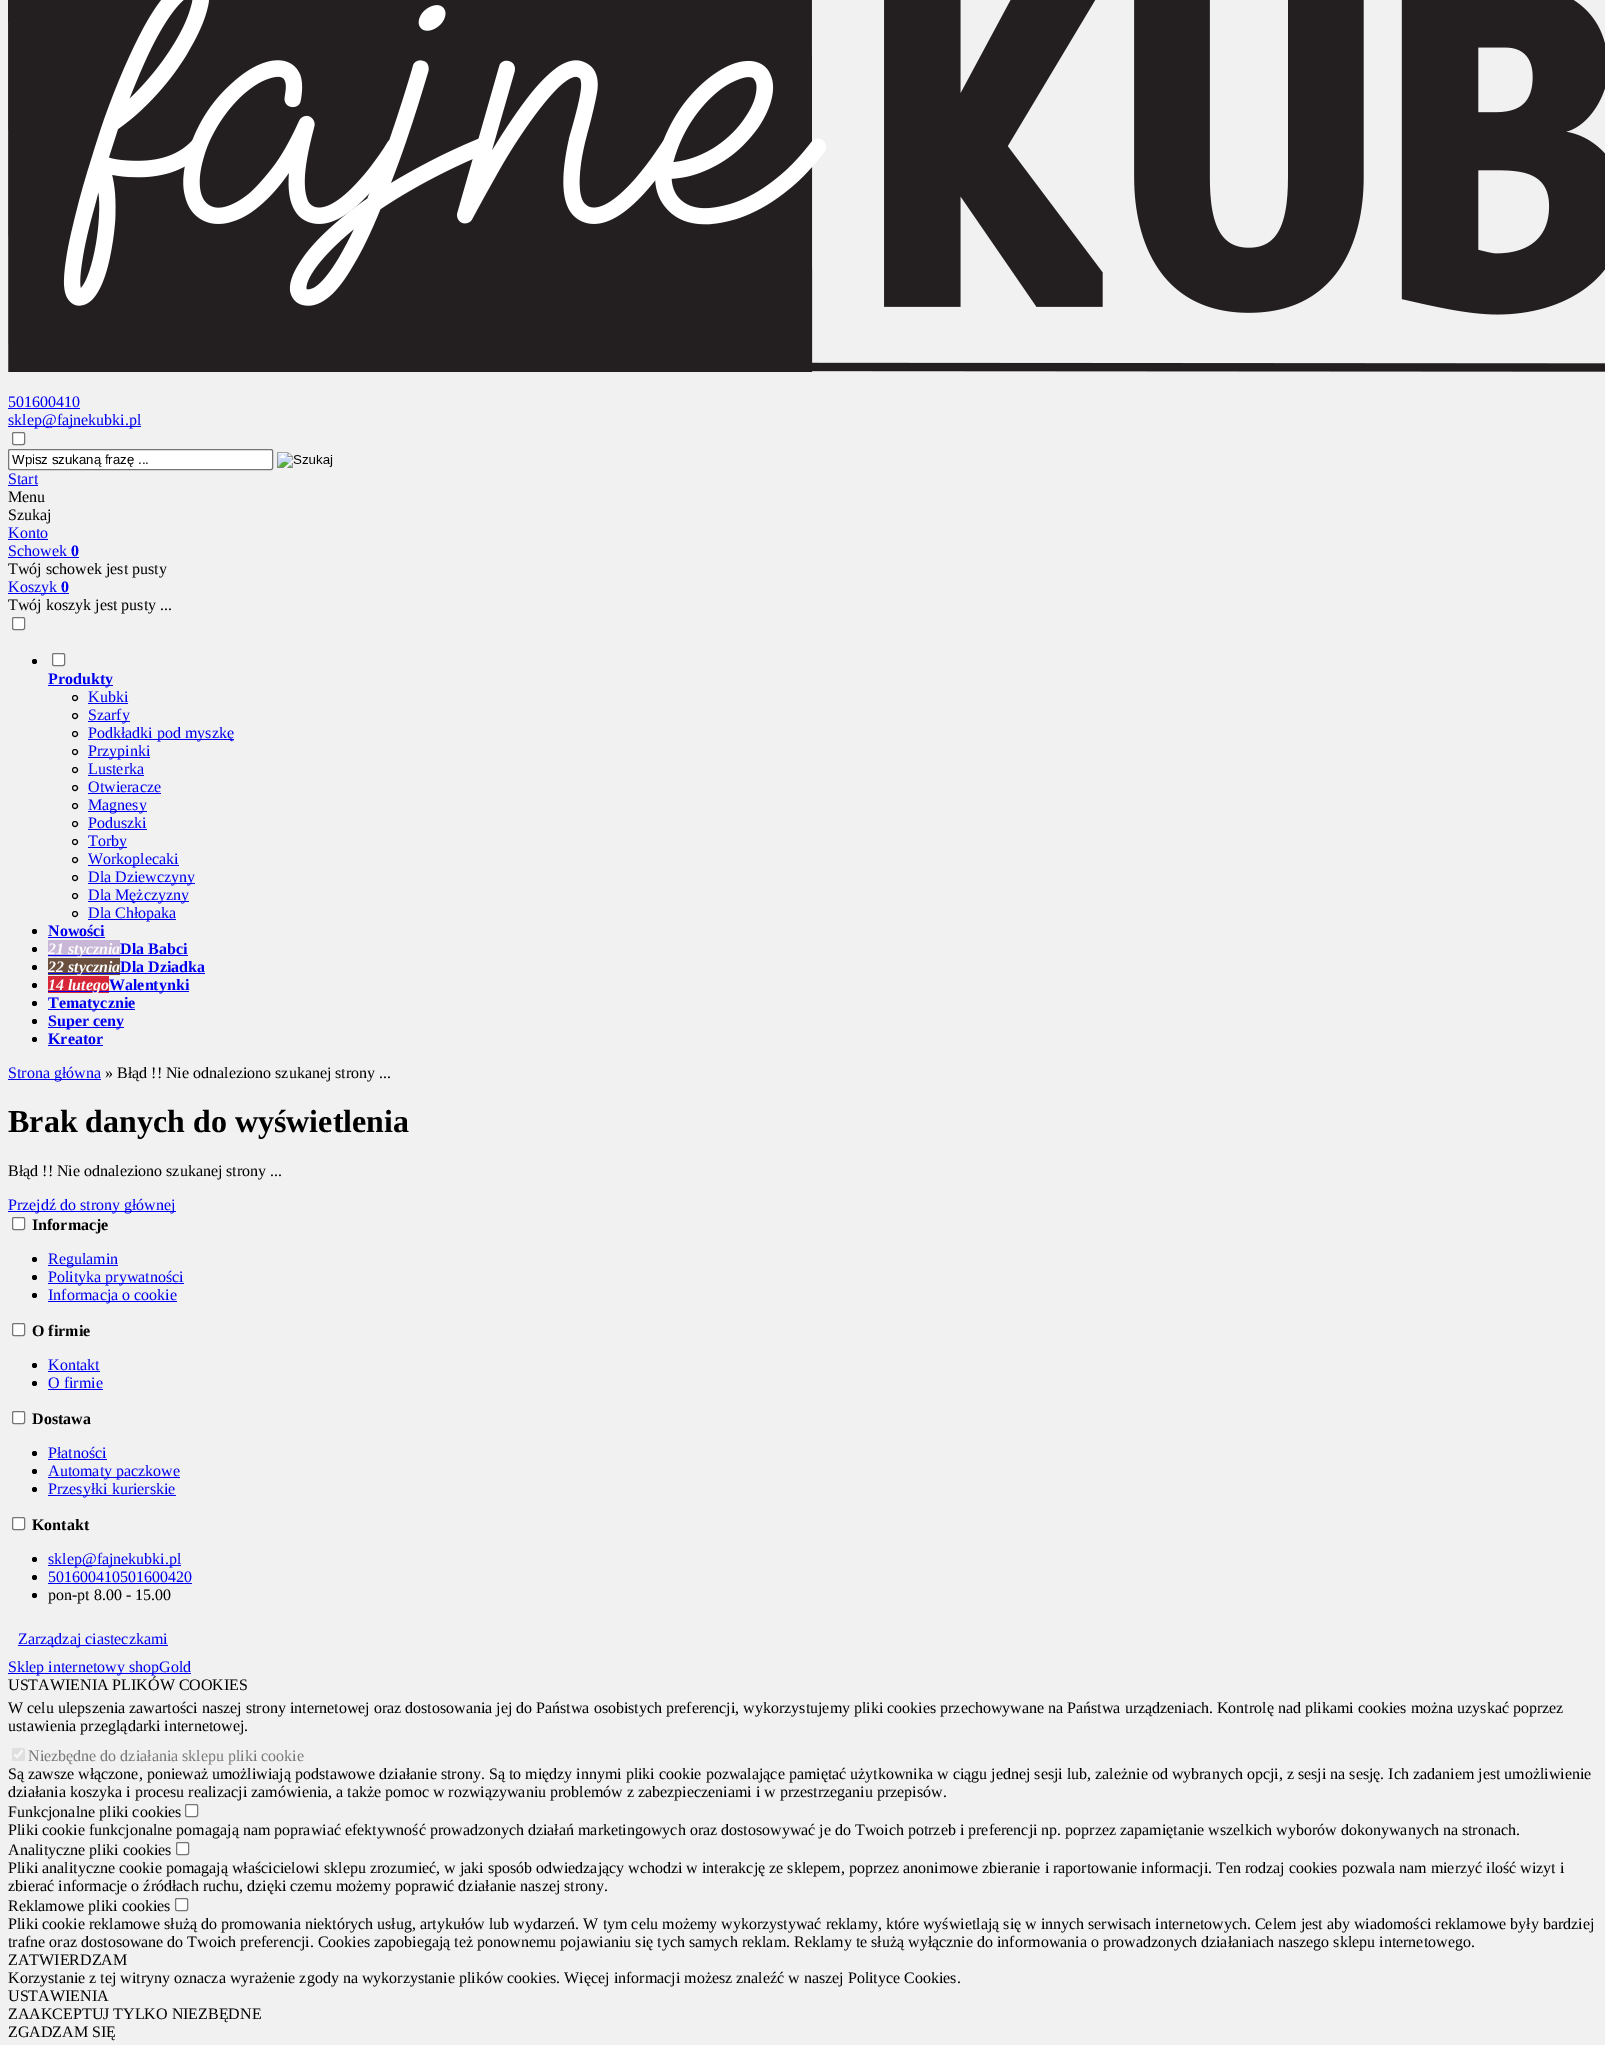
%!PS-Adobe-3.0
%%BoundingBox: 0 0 1605 2045
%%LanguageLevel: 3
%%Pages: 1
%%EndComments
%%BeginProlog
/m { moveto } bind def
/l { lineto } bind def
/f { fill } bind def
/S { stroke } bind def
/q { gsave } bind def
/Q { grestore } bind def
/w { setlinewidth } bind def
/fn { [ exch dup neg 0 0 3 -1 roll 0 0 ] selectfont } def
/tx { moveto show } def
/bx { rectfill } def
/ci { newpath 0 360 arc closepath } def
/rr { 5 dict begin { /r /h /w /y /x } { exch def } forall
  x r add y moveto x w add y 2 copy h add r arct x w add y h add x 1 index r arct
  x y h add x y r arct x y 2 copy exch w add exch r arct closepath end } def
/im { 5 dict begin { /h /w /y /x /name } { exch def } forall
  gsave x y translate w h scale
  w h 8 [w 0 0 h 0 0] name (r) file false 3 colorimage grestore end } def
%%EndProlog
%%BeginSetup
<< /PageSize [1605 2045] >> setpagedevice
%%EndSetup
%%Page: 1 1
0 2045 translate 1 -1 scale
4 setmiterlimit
0.945 setgray
0 0 1605 2045 bx
(image0.raw) 8 0 1597 372 im
/LiberationSerif-Regular 16 fn
0 0 0.933 setrgbcolor
(501600410) 8 407 tx
8 408 72 1 bx
8 426 133 1 bx
(sklep@fajnekubki.pl) 8 425 tx
1 setgray
12.5 432.5 12 12 1.5 rr q f Q
0.463 setgray
S
1 setgray
8.5 449.5 264 20 1.5 rr q f Q
0.463 setgray
S
/LiberationSans-Regular 13.25 fn
0 setgray
(Wpisz szukaną frazę ...) 12 464 tx
(image1.raw) 277 452 56 16 im
/LiberationSerif-Regular 16 fn
0 0 0.933 setrgbcolor
(Start) 8 484 tx
8 485 30 1 bx
0 setgray
(Menu) 8 502 tx
(Szukaj) 8 520 tx
0 0 0.933 setrgbcolor
(Konto) 8 538 tx
8 539 40 1 bx
(Schowek) 8 556 tx
/LiberationSerif-Bold 16 fn
(0) 71 556 tx
8 557 71 1 bx
/LiberationSerif-Regular 16 fn
0 setgray
(Twój schowek jest pusty) 8 574 tx
0 0 0.933 setrgbcolor
8 593 61 1 bx
(Koszyk) 8 592 tx
/LiberationSerif-Bold 16 fn
(0) 61 592 tx
/LiberationSerif-Regular 16 fn
0 setgray
(Twój koszyk jest pusty ...) 8 610 tx
1 setgray
12.5 617.5 12 12 1.5 rr q f Q
0.463 setgray
S
0 setgray
34.5 661.5 2.5 ci f
1 setgray
52.5 653.5 12 12 1.5 rr q f Q
0.463 setgray
S
0 0 0.933 setrgbcolor
48 685 65 1 bx
/LiberationSerif-Bold 16 fn
(Produkty) 48 684 tx
0 setgray
75 698 2.5 ci S
/LiberationSerif-Regular 16 fn
0 0 0.933 setrgbcolor
(Kubki) 88 702 tx
88 703 40 1 bx
0 setgray
75 716 2.5 ci S
0 0 0.933 setrgbcolor
88 721 42 1 bx
(Szarfy) 88 720 tx
0 setgray
75 734 2.5 ci S
0 0 0.933 setrgbcolor
88 739 146 1 bx
(Podkładki pod myszkę) 88 738 tx
0 setgray
75 752 2.5 ci S
0 0 0.933 setrgbcolor
88 757 62 1 bx
(Przypinki) 88 756 tx
0 setgray
75 770 2.5 ci S
0 0 0.933 setrgbcolor
(Lusterka) 88 774 tx
88 775 56 1 bx
0 setgray
75 788 2.5 ci S
0 0 0.933 setrgbcolor
(Otwieracze) 88 792 tx
88 793 73 1 bx
0 setgray
75 806 2.5 ci S
0 0 0.933 setrgbcolor
88 811 59 1 bx
(Magnesy) 88 810 tx
0 setgray
75 824 2.5 ci S
0 0 0.933 setrgbcolor
(Poduszki) 88 828 tx
88 829 59 1 bx
0 setgray
75 842 2.5 ci S
0 0 0.933 setrgbcolor
88 847 39 1 bx
(Torby) 88 846 tx
0 setgray
75 860 2.5 ci S
0 0 0.933 setrgbcolor
88 865 91 1 bx
(Workoplecaki) 88 864 tx
0 setgray
75 878 2.5 ci S
0 0 0.933 setrgbcolor
88 883 107 1 bx
(Dla Dziewczyny) 88 882 tx
0 setgray
75 896 2.5 ci S
0 0 0.933 setrgbcolor
88 901 101 1 bx
(Dla Mężczyzny) 88 900 tx
0 setgray
75 914 2.5 ci S
0 0 0.933 setrgbcolor
88 919 88 1 bx
(Dla Chłopaka) 88 918 tx
0 setgray
34.5 931.5 2.5 ci f
/LiberationSerif-Bold 16 fn
0 0 0.933 setrgbcolor
(Nowości) 48 936 tx
48 937 57 1 bx
0 setgray
34.5 949.5 2.5 ci f
0.784 0.718 0.839 setrgbcolor
48 940 72 17 bx
0 0 0.933 setrgbcolor
48 955 72 1 bx
/LiberationSerif-BoldItalic 16 fn
1 setgray
(21 stycznia) 48 954 tx
0 0 0.933 setrgbcolor
120 955 68 1 bx
/LiberationSerif-Bold 16 fn
(Dla Babci) 120 954 tx
0 setgray
34.5 967.5 2.5 ci f
0.42 0.31 0.247 setrgbcolor
48 958 72 17 bx
0 0 0.933 setrgbcolor
48 973 72 1 bx
/LiberationSerif-BoldItalic 16 fn
1 setgray
(22 stycznia) 48 972 tx
0 0 0.933 setrgbcolor
120 973 85 1 bx
/LiberationSerif-Bold 16 fn
(Dla Dziadka) 120 972 tx
0 setgray
34.5 985.5 2.5 ci f
0.843 0.149 0.22 setrgbcolor
48 976 61 17 bx
0 0 0.933 setrgbcolor
48 991 141 1 bx
/LiberationSerif-BoldItalic 16 fn
1 setgray
(14 lutego) 48 990 tx
/LiberationSerif-Bold 16 fn
0 0 0.933 setrgbcolor
(Walentynki) 109 990 tx
0 setgray
34.5 1003.5 2.5 ci f
0 0 0.933 setrgbcolor
48 1009 87 1 bx
(Tematycznie) 48 1008 tx
0 setgray
34.5 1021.5 2.5 ci f
0 0 0.933 setrgbcolor
48 1027 76 1 bx
(Super ceny) 48 1026 tx
0 setgray
34.5 1039.5 2.5 ci f
0 0 0.933 setrgbcolor
(Kreator) 48 1044 tx
48 1045 55 1 bx
8 1079 93 1 bx
/LiberationSerif-Regular 16 fn
(Strona główna) 8 1078 tx
0 setgray
(» Błąd !! Nie odnaleziono szukanej strony ...) 105 1078 tx
/LiberationSerif-Bold 32 fn
(Brak danych do wyświetlenia) 8 1132 tx
/LiberationSerif-Regular 16 fn
(Błąd !! Nie odnaleziono szukanej strony ...) 8 1176 tx
0 0 0.933 setrgbcolor
8 1211 168 1 bx
(Przejdź do strony głównej) 8 1210 tx
1 setgray
12.5 1217.5 12 12 1.5 rr q f Q
0.463 setgray
S
/LiberationSerif-Bold 16 fn
0 setgray
(Informacje) 32 1230 tx
34.5 1259.5 2.5 ci f
0 0 0.933 setrgbcolor
48 1265 70 1 bx
/LiberationSerif-Regular 16 fn
(Regulamin) 48 1264 tx
0 setgray
34.5 1277.5 2.5 ci f
0 0 0.933 setrgbcolor
48 1283 136 1 bx
(Polityka prywatności) 48 1282 tx
0 setgray
34.5 1295.5 2.5 ci f
0 0 0.933 setrgbcolor
48 1301 129 1 bx
(Informacja o cookie) 48 1300 tx
1 setgray
12.5 1323.5 12 12 1.5 rr q f Q
0.463 setgray
S
/LiberationSerif-Bold 16 fn
0 setgray
(O firmie) 32 1336 tx
34.5 1365.5 2.5 ci f
/LiberationSerif-Regular 16 fn
0 0 0.933 setrgbcolor
(Kontakt) 48 1370 tx
48 1371 52 1 bx
0 setgray
34.5 1383.5 2.5 ci f
0 0 0.933 setrgbcolor
(O firmie) 48 1388 tx
48 1389 55 1 bx
1 setgray
12.5 1411.5 12 12 1.5 rr q f Q
0.463 setgray
S
/LiberationSerif-Bold 16 fn
0 setgray
(Dostawa) 32 1424 tx
34.5 1453.5 2.5 ci f
/LiberationSerif-Regular 16 fn
0 0 0.933 setrgbcolor
(Płatności) 48 1458 tx
48 1459 59 1 bx
0 setgray
34.5 1471.5 2.5 ci f
0 0 0.933 setrgbcolor
48 1477 132 1 bx
(Automaty paczkowe) 48 1476 tx
0 setgray
34.5 1489.5 2.5 ci f
0 0 0.933 setrgbcolor
48 1495 128 1 bx
(Przesyłki kurierskie) 48 1494 tx
1 setgray
12.5 1517.5 12 12 1.5 rr q f Q
0.463 setgray
S
/LiberationSerif-Bold 16 fn
0 setgray
(Kontakt) 32 1530 tx
34.5 1559.5 2.5 ci f
0 0 0.933 setrgbcolor
48 1565 133 1 bx
/LiberationSerif-Regular 16 fn
(sklep@fajnekubki.pl) 48 1564 tx
0 setgray
34.5 1577.5 2.5 ci f
0 0 0.933 setrgbcolor
(501600410501600420) 48 1582 tx
48 1583 144 1 bx
0 setgray
34.5 1595.5 2.5 ci f
(pon-pt 8.00 - 15.00) 48 1600 tx
0 0 0.933 setrgbcolor
18 1645 150 1 bx
(Zarządzaj ciasteczkami) 18 1644 tx
8 1673 183 1 bx
(Sklep internetowy shopGold) 8 1672 tx
0 setgray
(USTAWIENIA PLIKÓW COOKIES) 8 1690 tx
(W celu ulepszenia zawartości naszej strony internetowej oraz dostosowania jej do Państwa osobistych preferencji, wykorzystujemy pliki cookies przechowywane na Państwa urządzeniach. Kontrolę nad plikami cookies można uzyskać poprzez) 8 1713 tx
(ustawienia przeglądarki internetowej.) 8 1731 tx
0.875 setgray
12 1748 13 13 2 rr f
0.973 setgray
2.1 w
14.5 1754.5 m 17 1757 l 22.5 1750.5 l S
0.475 setgray
(Niezbędne do działania sklepu pliki cookie) 28 1761 tx
0 setgray
(Są zawsze włączone, ponieważ umożliwiają podstawowe działanie strony. Są to między innymi pliki cookie pozwalające pamiętać użytkownika w ciągu jednej sesji lub, zależnie od wybranych opcji, z sesji na sesję. Ich zadaniem jest umożliwienie) 8 1779 tx
(działania koszyka i procesu realizacji zamówienia, a także pomoc w rozwiązywaniu problemów z zabezpieczeniami i w przestrzeganiu przepisów.) 8 1797 tx
(Funkcjonalne pliki cookies) 8 1817 tx
1 setgray
185.5 1804.5 12 12 1.5 rr q f Q
0.463 setgray
1 w
S
0 setgray
(Pliki cookie funkcjonalne pomagają nam poprawiać efektywność prowadzonych działań marketingowych oraz dostosowywać je do Twoich potrzeb i preferencji np. poprzez zapamiętanie wszelkich wyborów dokonywanych na stronach.) 8 1835 tx
(Analityczne pliki cookies) 8 1855 tx
1 setgray
176.5 1842.5 12 12 1.5 rr q f Q
0.463 setgray
S
0 setgray
(Pliki analityczne cookie pomagają właścicielowi sklepu zrozumieć, w jaki sposób odwiedzający wchodzi w interakcję ze sklepem, poprzez anonimowe zbieranie i raportowanie informacji. Ten rodzaj cookies pozwala nam mierzyć ilość wizyt i) 8 1873 tx
(zbierać informacje o źródłach ruchu, dzięki czemu możemy poprawić działanie naszej strony.) 8 1891 tx
(Reklamowe pliki cookies) 8 1911 tx
1 setgray
175.5 1898.5 12 12 1.5 rr q f Q
0.463 setgray
S
0 setgray
(Pliki cookie reklamowe służą do promowania niektórych usług, artykułów lub wydarzeń. W tym celu możemy wykorzystywać reklamy, które wyświetlają się w innych serwisach internetowych. Celem jest aby wiadomości reklamowe były bardziej) 8 1929 tx
(trafne oraz dostosowane do Twoich preferencji. Cookies zapobiegają też ponownemu pojawianiu się tych samych reklam. Reklamy te służą wyłącznie do informowania o prowadzonych działaniach naszego sklepu internetowego.) 8 1947 tx
(ZATWIERDZAM) 8 1965 tx
(Korzystanie z tej witryny oznacza wyrażenie zgody na wykorzystanie plików cookies. Więcej informacji możesz znaleźć w naszej Polityce Cookies.) 8 1983 tx
(USTAWIENIA) 8 2001 tx
(ZAAKCEPTUJ TYLKO NIEZBĘDNE) 8 2019 tx
(ZGADZAM SIĘ) 8 2037 tx
showpage
%%EOF
